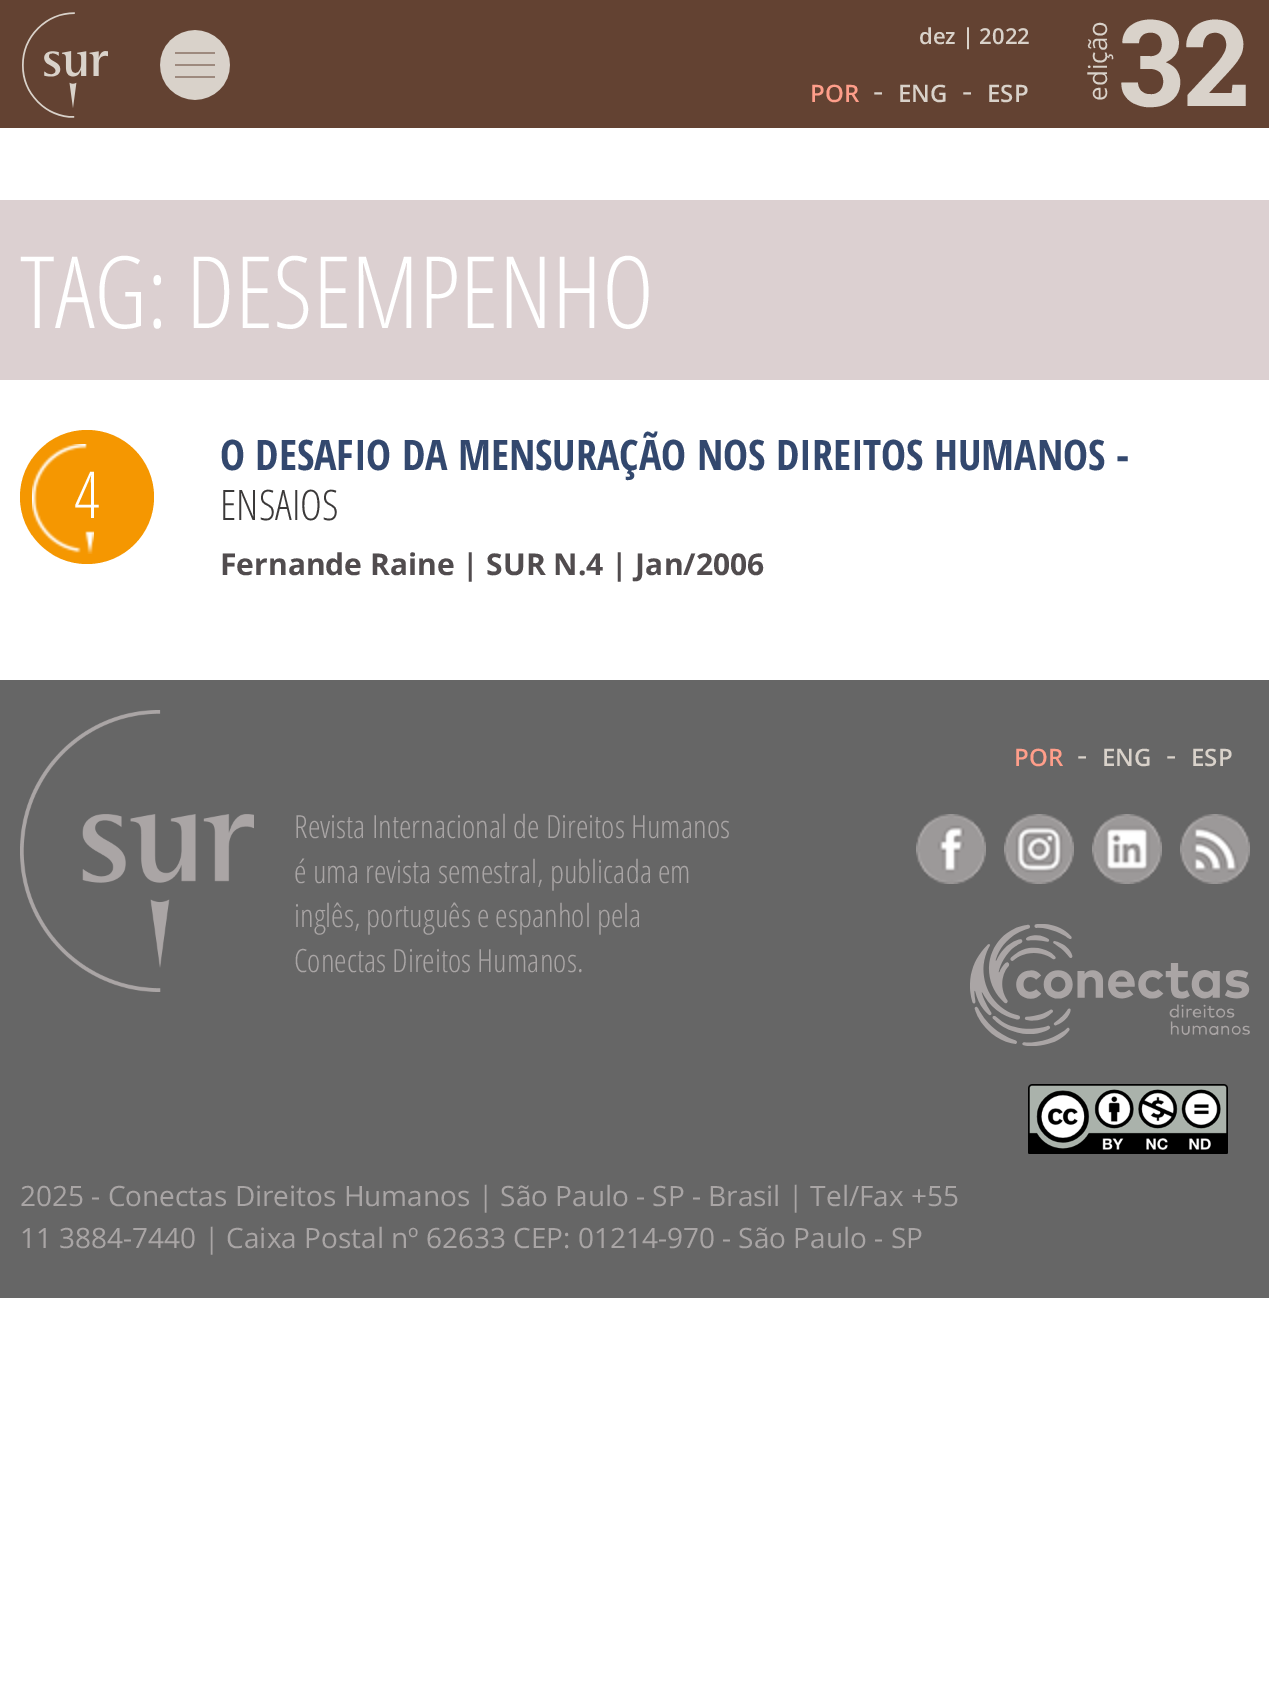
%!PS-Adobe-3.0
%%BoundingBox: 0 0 1269 1704
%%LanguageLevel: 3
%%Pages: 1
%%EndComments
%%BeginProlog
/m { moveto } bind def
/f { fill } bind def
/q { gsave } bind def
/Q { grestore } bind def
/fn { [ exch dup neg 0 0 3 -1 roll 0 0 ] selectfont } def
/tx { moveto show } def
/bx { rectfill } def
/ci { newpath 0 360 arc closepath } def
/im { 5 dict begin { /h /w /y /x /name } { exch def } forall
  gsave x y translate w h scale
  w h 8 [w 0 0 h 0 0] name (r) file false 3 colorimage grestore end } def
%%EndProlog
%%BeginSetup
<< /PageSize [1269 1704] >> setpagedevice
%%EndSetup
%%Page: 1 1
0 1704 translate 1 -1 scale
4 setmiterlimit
1 setgray
0 0 1269 1704 bx
0.388 0.259 0.196 setrgbcolor
0 0 1269 128 bx
(image0.raw) 22 12 86 106 im
(image1.raw) 160 30 70 70 im
/OpenSans-SemiBold 22 fn
0.851 0.824 0.792 setrgbcolor
(dez | 2022) 919 44 tx
/OpenSans-Regular 26 fn
q 1107 101 translate -90 rotate 0 0 m (edição) show Q
/RobotoSlab-Bold 120 fn
(32) 1118 106 tx
/OpenSans-SemiBold 24 fn
1 0.62 0.541 setrgbcolor
(POR) 810 102 tx
/OpenSans-Regular 32 fn
0.851 0.824 0.792 setrgbcolor
(-) 873 102 tx
/OpenSans-SemiBold 24 fn
(ENG) 898 102 tx
/OpenSans-Regular 32 fn
(-) 962 102 tx
/OpenSans-SemiBold 24 fn
(ESP) 987 102 tx
0.863 0.816 0.82 setrgbcolor
0 200 1269 180 bx
/OpenSans-Light 100 fn
1 setgray
(TAG: DESEMPENHO) 20 328 tx
0.961 0.592 0.004 setrgbcolor
87 497 67 ci f
(image2.raw) 32 444 62 110 im
/OpenSans-Light 64 fn
1 setgray
(4) 74 518 tx
/OpenSansCondensed-Bold 42 fn
0.2 0.282 0.431 setrgbcolor
(O DESAFIO DA MENSURAÇÃO NOS DIREITOS HUMANOS -) 220 470 tx
/OpenSans-Light 42 fn
0.231 0.224 0.224 setrgbcolor
(ENSAIOS) 220 520 tx
/OpenSans-Bold 30 fn
0.318 0.298 0.306 setrgbcolor
(Fernande Raine | SUR N.4 | Jan/2006) 220 575 tx
0.4 setgray
0 680 1269 618 bx
/OpenSans-SemiBold 24 fn
1 0.62 0.541 setrgbcolor
(POR) 1014 766 tx
/OpenSans-Regular 32 fn
0.851 0.824 0.792 setrgbcolor
(-) 1077 766 tx
/OpenSans-SemiBold 24 fn
(ENG) 1102 766 tx
/OpenSans-Regular 32 fn
(-) 1166 766 tx
/OpenSans-SemiBold 24 fn
(ESP) 1191 766 tx
(image3.raw) 20 710 234 282 im
/OpenSans-Light 32 fn
0.663 0.647 0.647 setrgbcolor
(Revista Internacional de Direitos Humanos) 294 838 tx
(é uma revista semestral, publicada em) 294 883 tx
(inglês, português e espanhol pela) 294 927 tx
(Conectas Direitos Humanos.) 294 972 tx
(image4.raw) 916 814 70 70 im
(image5.raw) 1004 814 70 70 im
(image6.raw) 1092 814 70 70 im
(image7.raw) 1180 814 70 70 im
(image8.raw) 970 924 280 122 im
(image9.raw) 1028 1084 200 70 im
/OpenSans-Regular 28 fn
(2025 - Conectas Direitos Humanos | São Paulo - SP - Brasil | Tel/Fax +55) 20 1206 tx
(11 3884-7440 | Caixa Postal nº 62633 CEP: 01214-970 - São Paulo - SP) 20 1248 tx
showpage
%%EOF
